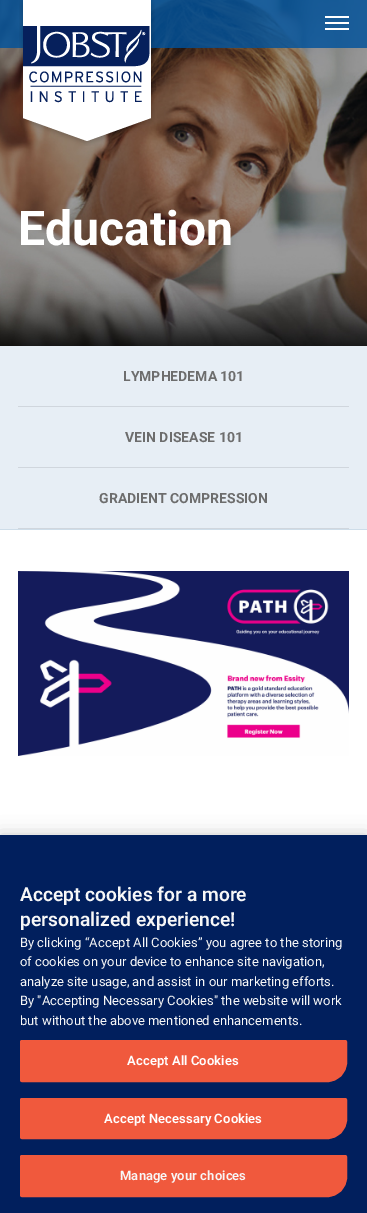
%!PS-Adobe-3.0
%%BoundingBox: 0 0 367 1213
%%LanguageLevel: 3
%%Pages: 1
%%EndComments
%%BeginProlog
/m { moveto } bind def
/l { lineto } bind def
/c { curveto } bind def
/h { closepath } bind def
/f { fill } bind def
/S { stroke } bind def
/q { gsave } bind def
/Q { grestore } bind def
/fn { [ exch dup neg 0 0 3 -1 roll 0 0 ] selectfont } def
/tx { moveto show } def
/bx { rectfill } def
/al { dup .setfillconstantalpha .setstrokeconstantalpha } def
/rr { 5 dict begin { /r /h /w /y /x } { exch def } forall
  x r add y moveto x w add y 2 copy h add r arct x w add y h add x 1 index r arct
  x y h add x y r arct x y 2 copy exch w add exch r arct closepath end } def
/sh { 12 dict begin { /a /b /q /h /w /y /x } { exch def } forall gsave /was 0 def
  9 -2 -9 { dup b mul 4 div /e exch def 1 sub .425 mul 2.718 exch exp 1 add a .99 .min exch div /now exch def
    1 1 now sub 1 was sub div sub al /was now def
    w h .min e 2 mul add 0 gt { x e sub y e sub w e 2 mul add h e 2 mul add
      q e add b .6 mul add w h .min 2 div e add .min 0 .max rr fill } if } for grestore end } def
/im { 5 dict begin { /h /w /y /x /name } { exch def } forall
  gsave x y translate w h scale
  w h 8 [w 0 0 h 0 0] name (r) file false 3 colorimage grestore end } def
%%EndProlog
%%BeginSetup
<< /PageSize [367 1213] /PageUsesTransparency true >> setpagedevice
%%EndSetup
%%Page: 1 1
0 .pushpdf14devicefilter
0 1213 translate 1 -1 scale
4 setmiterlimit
1 setgray
0 0 367 1213 bx
(image0.raw) 0 0 367 346 im
0.82 al
0 0.322 0.612 setrgbcolor
0 0 367 48 bx
1 al
(image1.raw) 19 0 136 146 im
1 setgray
325 22 24 2 bx
325 16 24 2 bx
325 28 24 2 bx
/Roboto-Bold 48 fn
(Education) 18 245 tx
0.906 0.933 0.961 setrgbcolor
0 346 367 183 bx
0.808 0.867 0.914 setrgbcolor
0 529 367 1 bx
0.816 0.839 0.867 setrgbcolor
18 406 331 1 bx
/Roboto-Bold 14 fn
0.427 setgray
(LYMPHEDEMA 101) 123 381 tx
0.816 0.839 0.867 setrgbcolor
18 467 331 1 bx
0.427 setgray
(VEIN DISEASE 101) 125 442 tx
0.816 0.839 0.867 setrgbcolor
18 528 331 1 bx
0.427 setgray
(GRADIENT COMPRESSION) 99 503 tx
(image2.raw) 18 571 331 185 im
0 setgray
0 835 367 378 0 9 0.2 sh
0.004 0.122 0.365 setrgbcolor
0 835 367 378 bx
/Roboto-SemiBold 19.25 fn
0.969 setgray
(Accept cookies for a more) 20 901 tx
(personalized experience!) 20 926 tx
/Roboto-Regular 13 fn
(By clicking “Accept All Cookies” you agree to the storing) 20 947 tx
(of cookies on your device to enhance site navigation,) 20 966 tx
(analyze site usage, and assist in our marketing efforts.) 20 986 tx
(By "Accepting Necessary Cookies" the website will work) 20 1005 tx
(but without the above mentioned enhancements.) 20 1025 tx
0.941 0.349 0.239 setrgbcolor
22 1040.5 m 345 1040.5 l 346 1040.5 346.5 1041 346.5 1042 c 346.5 1062 l 346.5 1073 338 1081.5 327 1081.5 c 22 1081.5 l 21 1081.5 20.5 1081 20.5 1080 c 20.5 1042 l 20.5 1041 21 1040.5 22 1040.5 c h q f Q
S
/Roboto-SemiBold 13 fn
1 setgray
127 1065 m 0.1 0 (Accept All Cookies) ashow
0.941 0.349 0.239 setrgbcolor
22 1098.5 m 345 1098.5 l 346 1098.5 346.5 1099 346.5 1100 c 346.5 1119 l 346.5 1130 338 1138.5 327 1138.5 c 22 1138.5 l 21 1138.5 20.5 1138 20.5 1137 c 20.5 1100 l 20.5 1099 21 1098.5 22 1098.5 c h q f Q
S
1 setgray
104 1123 m 0.1 0 (Accept Necessary Cookies) ashow
0.941 0.349 0.239 setrgbcolor
22 1155.5 m 345 1155.5 l 346 1155.5 346.5 1156 346.5 1157 c 346.5 1177 l 346.5 1188 338 1196.5 327 1196.5 c 22 1196.5 l 21 1196.5 20.5 1196 20.5 1195 c 20.5 1157 l 20.5 1156 21 1155.5 22 1155.5 c h q f Q
S
0.969 setgray
120 1180 m 0.1 0 (Manage your choices) ashow
.poppdf14devicefilter showpage
%%EOF
